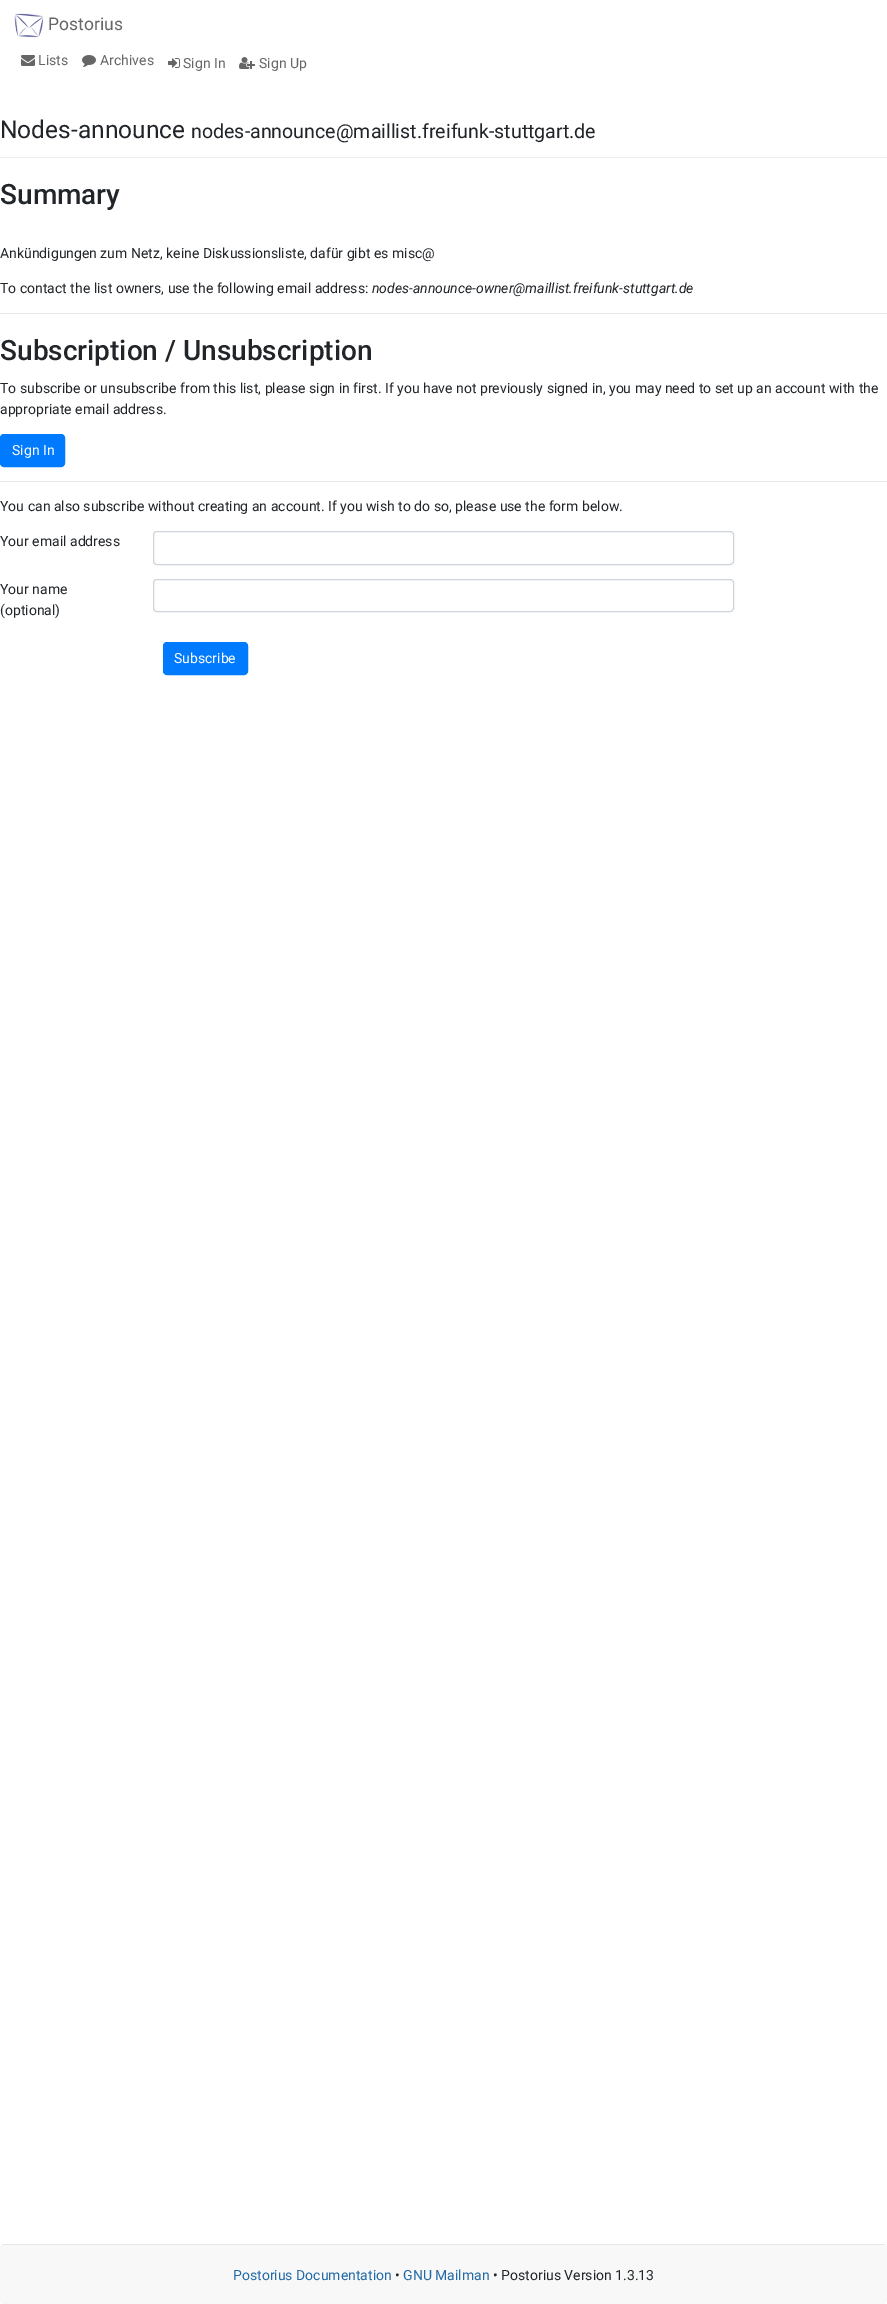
%!PS-Adobe-3.0
%%BoundingBox: 0 0 887 2304
%%LanguageLevel: 3
%%Pages: 1
%%EndComments
%%BeginProlog
/f { fill } bind def
/S { stroke } bind def
/q { gsave } bind def
/Q { grestore } bind def
/fn { [ exch dup neg 0 0 3 -1 roll 0 0 ] selectfont } def
/tx { moveto show } def
/bx { rectfill } def
/rr { 5 dict begin { /r /h /w /y /x } { exch def } forall
  x r add y moveto x w add y 2 copy h add r arct x w add y h add x 1 index r arct
  x y h add x y r arct x y 2 copy exch w add exch r arct closepath end } def
/im { 5 dict begin { /h /w /y /x /name } { exch def } forall
  gsave x y translate w h scale
  w h 8 [w 0 0 h 0 0] name (r) file false 3 colorimage grestore end } def
%%EndProlog
%%BeginSetup
<< /PageSize [887 2304] >> setpagedevice
%%EndSetup
%%Page: 1 1
0 2304 translate 1 -1 scale
4 setmiterlimit
1 setgray
0 0 887 2304 bx
(image0.raw) 14 13 30 25 im
/Roboto-Regular 17.5 fn
0.4 setgray
(Postorius) 48 30 tx
(image1.raw) 21 55 14 11 im
/Roboto-Regular 14 fn
(Lists) 38 65 tx
(image2.raw) 82 55 14 12 im
(Archives) 100 65 tx
(image3.raw) 168 58 12 10 im
(Sign In) 183 68 tx
(image4.raw) 239 57 16 12 im
(Sign Up) 259 68 tx
0.933 setgray
0 157 887 1 bx
/Roboto-Regular 24.5 fn
0.129 0.145 0.161 setrgbcolor
(Nodes-announce) 0 138 tx
/Roboto-Regular 19.6 fn
(nodes-announce@maillist.freifunk-stuttgart.de) 191 138 tx
/Roboto-Medium 28 fn
(Summary) 0 204 tx
/Roboto-Regular 14 fn
(Ankündigungen zum Netz, keine Diskussionsliste, dafür gibt es misc@) 0 258 tx
(To contact the list owners, use the following email address:) 0 293 tx
/Roboto-Italic 14 fn
(nodes-announce-owner@maillist.freifunk-stuttgart.de) 372 293 tx
0.902 setgray
0 313 887 1 bx
/Roboto-Medium 28 fn
0.129 0.145 0.161 setrgbcolor
(Subscription / Unsubscription) 0 360 tx
/Roboto-Regular 14 fn
(To subscribe or unsubscribe from this list, please sign in first. If you have not previously signed in, you may need to set up an account with the) 0 393 tx
(appropriate email address.) 0 414 tx
0 0.482 1 setrgbcolor
0.5 434.5 64 32 3.5 rr q f Q
S
1 setgray
(Sign In) 12 455 tx
0.902 setgray
0 481 887 1 bx
0.129 0.145 0.161 setrgbcolor
(You can also subscribe without creating an account. If you wish to do so, please use the form below.) 0 511 tx
(Your email address) 0 546 tx
0.808 0.831 0.855 setrgbcolor
153.5 531.5 580 33 3.5 rr S
0.129 0.145 0.161 setrgbcolor
(Your name) 0 594 tx
(\(optional\)) 0 615 tx
0.808 0.831 0.855 setrgbcolor
153.5 579.5 580 32 3.5 rr S
0 0.482 1 setrgbcolor
163.5 642.5 84 32 3.5 rr q f Q
S
1 setgray
(Subscribe) 174 663 tx
0.973 setgray
0 2244 887 60 4 rr f
0.906 setgray
2 2244 883 1 bx
0.133 0.412 0.651 setrgbcolor
(Postorius Documentation) 233 2280 tx
0.129 0.145 0.161 setrgbcolor
(•) 395 2280 tx
0.133 0.412 0.651 setrgbcolor
(GNU Mailman) 403 2280 tx
0.129 0.145 0.161 setrgbcolor
(• Postorius Version 1.3.13) 493 2280 tx
showpage
%%EOF
